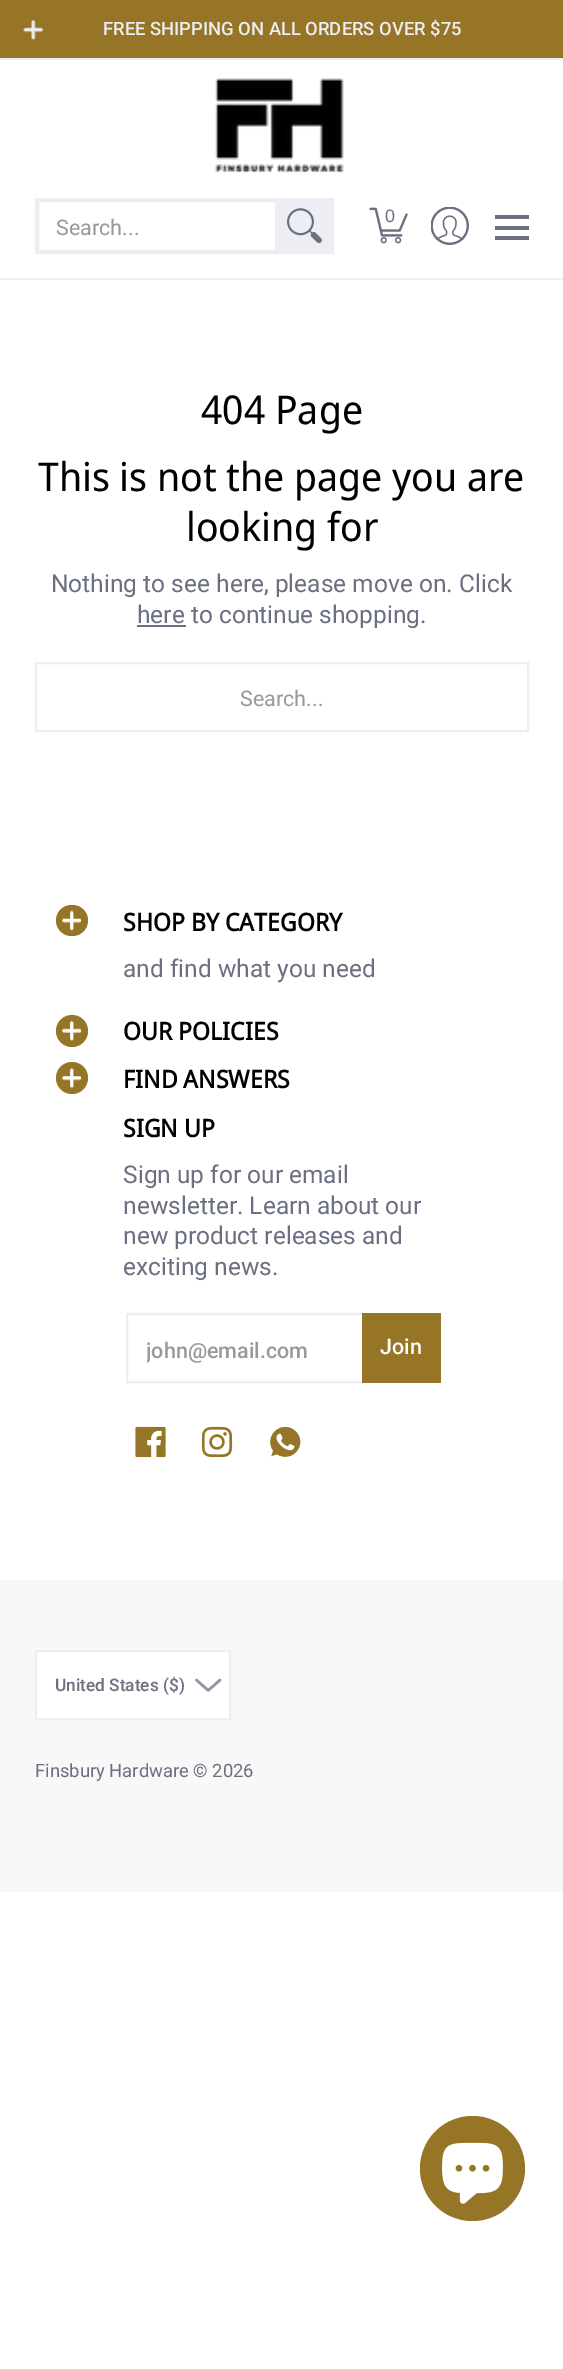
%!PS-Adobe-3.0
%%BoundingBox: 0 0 563 2369
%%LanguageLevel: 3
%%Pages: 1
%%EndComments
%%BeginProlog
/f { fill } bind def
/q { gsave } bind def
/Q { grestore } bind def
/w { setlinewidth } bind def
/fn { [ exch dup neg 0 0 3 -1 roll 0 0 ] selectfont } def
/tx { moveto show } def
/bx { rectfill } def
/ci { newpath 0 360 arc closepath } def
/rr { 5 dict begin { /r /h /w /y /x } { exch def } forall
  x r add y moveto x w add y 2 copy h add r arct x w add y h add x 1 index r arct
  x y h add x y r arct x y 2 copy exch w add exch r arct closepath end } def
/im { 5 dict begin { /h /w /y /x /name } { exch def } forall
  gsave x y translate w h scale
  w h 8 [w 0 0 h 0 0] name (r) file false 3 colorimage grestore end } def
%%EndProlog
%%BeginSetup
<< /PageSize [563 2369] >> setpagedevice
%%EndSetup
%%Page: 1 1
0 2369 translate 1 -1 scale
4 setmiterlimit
1 setgray
0 0 563 2369 bx
0.588 0.463 0.149 setrgbcolor
0 0 563 58 bx
0.929 0.933 0.957 setrgbcolor
0 58 563 2 bx
(image0.raw) 23 20 21 20 im
/Roboto-Medium 18.4 fn
(FREE SHIPPING ON ALL ORDERS OVER $75) 103 35 tx
0 278 563 2 bx
(image1.raw) 214 78 130 95 im
2 w
36 199 297 54 rectstroke
38 201 238 50 rectstroke
/Roboto-Regular 21.5 fn
0.596 setgray
(Search...) 56 235 tx
0.929 0.933 0.957 setrgbcolor
277 200 55 52 bx
(image2.raw) 287 208 35 36 im
(image3.raw) 369 207 39 37 im
/LiberationSans-Regular 18 fn
0.42 0.435 0.506 setrgbcolor
(0) 385 222 tx
(image4.raw) 431 207 38 38 im
495 215 34 4 bx
495 236 34 4 bx
495 226 34 4 bx
/NotoSansDisplay-Regular 39.75 fn
0 setgray
(404 Page) 201 424 tx
(This is not the page you are) 38 491 tx
(looking for) 186 541 tx
/Roboto-Regular 24.5 fn
0.42 0.435 0.506 setrgbcolor
(Nothing to see here, please move on. Click) 51 592 tx
137 625 49 2 bx
(here to continue shopping.) 137 623 tx
0.929 0.933 0.957 setrgbcolor
36 663 492 68 rectstroke
/Roboto-Regular 21.5 fn
0.596 setgray
(Search...) 240 706 tx
0.588 0.463 0.149 setrgbcolor
56 905 32 31 15.5 rr f
(image5.raw) 62 910 20 21 im
/NotoSansDisplay-Bold 24.5 fn
0 setgray
(SHOP BY CATEGORY) 123 931 tx
/Roboto-Regular 24.5 fn
0.42 0.435 0.506 setrgbcolor
(and find what you need) 123 977 tx
0.588 0.463 0.149 setrgbcolor
72 1031 16 ci f
(image6.raw) 62 1020 20 21 im
/NotoSansDisplay-Bold 24.5 fn
0 setgray
(OUR POLICIES) 123 1040 tx
0.588 0.463 0.149 setrgbcolor
72 1078 16 ci f
(image7.raw) 62 1068 20 21 im
0 setgray
(FIND ANSWERS) 123 1088 tx
(SIGN UP) 123 1137 tx
/Roboto-Regular 24.5 fn
0.42 0.435 0.506 setrgbcolor
(Sign up for our email) 123 1183 tx
(newsletter. Learn about our) 123 1214 tx
(new product releases and) 123 1244 tx
(exciting news.) 123 1275 tx
0.929 0.933 0.957 setrgbcolor
127 1314 238 68 rectstroke
q
147 1339 198 24 rectclip
/Roboto-Medium 21.5 fn
0.596 setgray
(john@email.com) 146 1358 tx
Q
0.588 0.463 0.149 setrgbcolor
362 1313 79 70 bx
/Roboto-Medium 21.5 fn
1 setgray
(Join) 380 1354 tx
(image8.raw) 135 1426 31 32 im
(image9.raw) 201 1426 32 32 im
(image10.raw) 270 1426 31 31 im
0.973 setgray
0 1580 563 312 bx
1 setgray
37 1652 192 66 bx
(image11.raw) 195 1678 27 14 im
0.929 0.933 0.957 setrgbcolor
36 1651 194 68 rectstroke
/Roboto-Medium 17.25 fn
0.42 0.435 0.506 setrgbcolor
(United States \($\)) 55 1691 tx
/Roboto-Regular 18.4 fn
(Finsbury Hardware © 2026) 35 1777 tx
0.588 0.463 0.149 setrgbcolor
472.5 2168.5 52.5 ci f
(image12.raw) 442 2142 61 62 im
showpage
%%EOF
